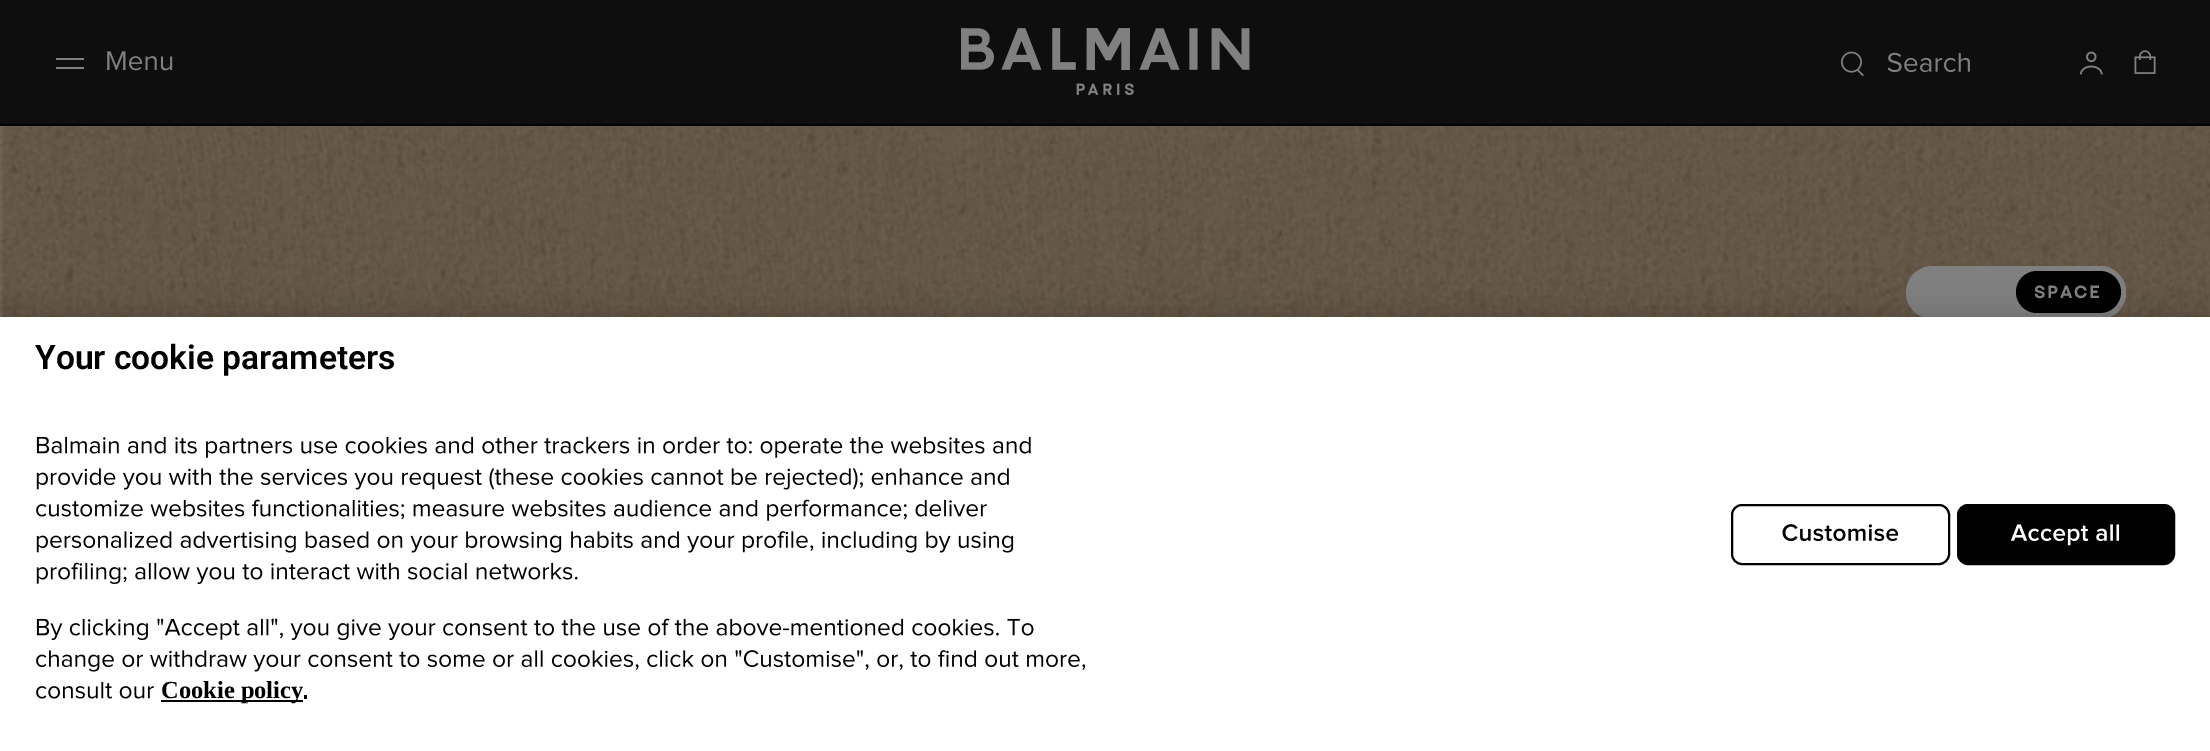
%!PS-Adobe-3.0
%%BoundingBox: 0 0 2210 751
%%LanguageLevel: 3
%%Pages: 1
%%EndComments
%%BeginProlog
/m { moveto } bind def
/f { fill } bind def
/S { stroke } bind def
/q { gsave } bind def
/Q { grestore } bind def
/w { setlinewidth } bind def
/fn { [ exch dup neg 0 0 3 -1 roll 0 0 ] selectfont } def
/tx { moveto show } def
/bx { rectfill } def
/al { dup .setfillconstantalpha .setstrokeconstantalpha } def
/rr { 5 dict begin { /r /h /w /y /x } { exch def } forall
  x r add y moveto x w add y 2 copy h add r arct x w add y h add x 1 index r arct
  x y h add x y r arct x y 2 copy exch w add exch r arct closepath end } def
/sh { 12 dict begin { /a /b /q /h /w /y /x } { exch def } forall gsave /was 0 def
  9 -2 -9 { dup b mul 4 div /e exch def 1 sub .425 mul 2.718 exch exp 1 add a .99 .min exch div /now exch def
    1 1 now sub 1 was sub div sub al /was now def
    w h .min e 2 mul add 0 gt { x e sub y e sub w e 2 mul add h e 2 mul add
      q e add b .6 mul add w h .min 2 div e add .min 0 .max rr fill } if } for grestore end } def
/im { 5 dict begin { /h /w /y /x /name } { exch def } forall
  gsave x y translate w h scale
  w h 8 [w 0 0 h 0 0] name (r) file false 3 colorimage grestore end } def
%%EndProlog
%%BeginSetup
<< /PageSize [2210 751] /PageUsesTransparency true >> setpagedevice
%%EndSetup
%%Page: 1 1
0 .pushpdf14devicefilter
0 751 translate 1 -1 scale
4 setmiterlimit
1 setgray
0 0 2210 751 bx
0.055 setgray
0 0 2210 124 bx
0 setgray
0 124 2210 2 bx
0.502 setgray
56 58 28 2 bx
56 67 28 2 bx
(image0.raw) 107 51 66 20 im
(image1.raw) 961 28 289 67 im
(image2.raw) 1841 51 23 26 im
(image3.raw) 1887 52 83 21 im
(image4.raw) 2079 51 24 24 im
(image5.raw) 2134 50 22 24 im
(image6.raw) 0 126 2210 191 im
1906 266 220 53 26.5 rr f
2016 266 110 53 26.5 rr f
0 setgray
2016 271 105 42 21 rr f
/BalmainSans-Medium 16.5 fn
0.502 setgray
2034 298 m 1.75 0 (space) ashow
0 setgray
0 317 2210 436 0 16 0.2 sh
1 setgray
0 317 2210 434 bx
/Roboto-SemiBold 33.6 fn
0 setgray
(Your cookie parameters) 35 369 tx
(image7.raw) 36 436 995 22 im
(image8.raw) 36 468 973 22 im
(image9.raw) 36 499 951 22 im
(image10.raw) 36 531 978 22 im
(image11.raw) 36 562 542 22 im
(image12.raw) 36 618 998 22 im
(image13.raw) 36 650 1050 22 im
(image14.raw) 36 681 118 18 im
161 700 142 2 bx
/LiberationSerif-Bold 24.5 fn
(Cookie policy) 161 698 tx
304 695 3 4 bx
2 w
1732 505 217 59 10 rr S
(image15.raw) 1782 524 117 18 im
1958 505 216 59 10 rr q f Q
S
(image16.raw) 2010 524 110 22 im
.poppdf14devicefilter showpage
%%EOF
